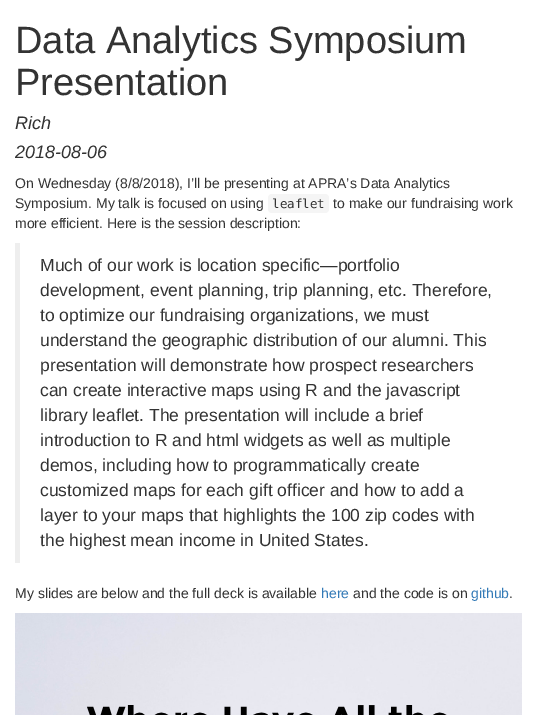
%!PS-Adobe-3.0
%%BoundingBox: 0 0 537 715
%%LanguageLevel: 3
%%Pages: 1
%%EndComments
%%BeginProlog
/f { fill } bind def
/fn { [ exch dup neg 0 0 3 -1 roll 0 0 ] selectfont } def
/tx { moveto show } def
/bx { rectfill } def
/rr { 5 dict begin { /r /h /w /y /x } { exch def } forall
  x r add y moveto x w add y 2 copy h add r arct x w add y h add x 1 index r arct
  x y h add x y r arct x y 2 copy exch w add exch r arct closepath end } def
/im { 5 dict begin { /h /w /y /x /name } { exch def } forall
  gsave x y translate w h scale
  w h 8 [w 0 0 h 0 0] name (r) file false 3 colorimage grestore end } def
%%EndProlog
%%BeginSetup
<< /PageSize [537 715] >> setpagedevice
%%EndSetup
%%Page: 1 1
0 715 translate 1 -1 scale
4 setmiterlimit
1 setgray
0 0 537 715 bx
/LiberationSans-Regular 38 fn
0.2 setgray
(Data Analytics Symposium) 15 53 tx
(Presentation) 15 95 tx
/LiberationSans-Italic 18 fn
(Rich) 15 129 tx
(2018-08-06) 15 158 tx
/LiberationSans-Regular 14 fn
(On Wednesday \(8/8/2018\), I’ll be presenting at APRA’s Data Analytics) 15 188 tx
(Symposium. My talk is focused on using) 15 208 tx
0.961 setgray
268 194 61 19 4 rr f
/DejaVuSansMono-Regular 12.5 fn
0.2 setgray
(leaflet) 272 208 tx
/LiberationSans-Regular 14 fn
(to make our fundraising work) 333 208 tx
(more efficient. Here is the session description:) 15 228 tx
0.933 setgray
15 243 5 320 bx
/LiberationSans-Regular 17.5 fn
0.2 setgray
(Much of our work is location specific—portfolio) 40 271 tx
(development, event planning, trip planning, etc. Therefore,) 40 296 tx
(to optimize our fundraising organizations, we must) 40 321 tx
(understand the geographic distribution of our alumni. This) 40 346 tx
(presentation will demonstrate how prospect researchers) 40 371 tx
(can create interactive maps using R and the javascript) 40 396 tx
(library leaflet. The presentation will include a brief) 40 421 tx
(introduction to R and html widgets as well as multiple) 40 446 tx
(demos, including how to programmatically create) 40 471 tx
(customized maps for each gift officer and how to add a) 40 496 tx
(layer to your maps that highlights the 100 zip codes with) 40 521 tx
(the highest mean income in United States.) 40 546 tx
/LiberationSans-Regular 14 fn
(My slides are below and the full deck is available) 15 598 tx
0.2 0.478 0.718 setrgbcolor
(here) 321 598 tx
0.2 setgray
(and the code is on) 353 598 tx
0.2 0.478 0.718 setrgbcolor
(github) 471 598 tx
0.2 setgray
(.) 509 598 tx
(image0.raw) 15 613 507 102 im
showpage
%%EOF
